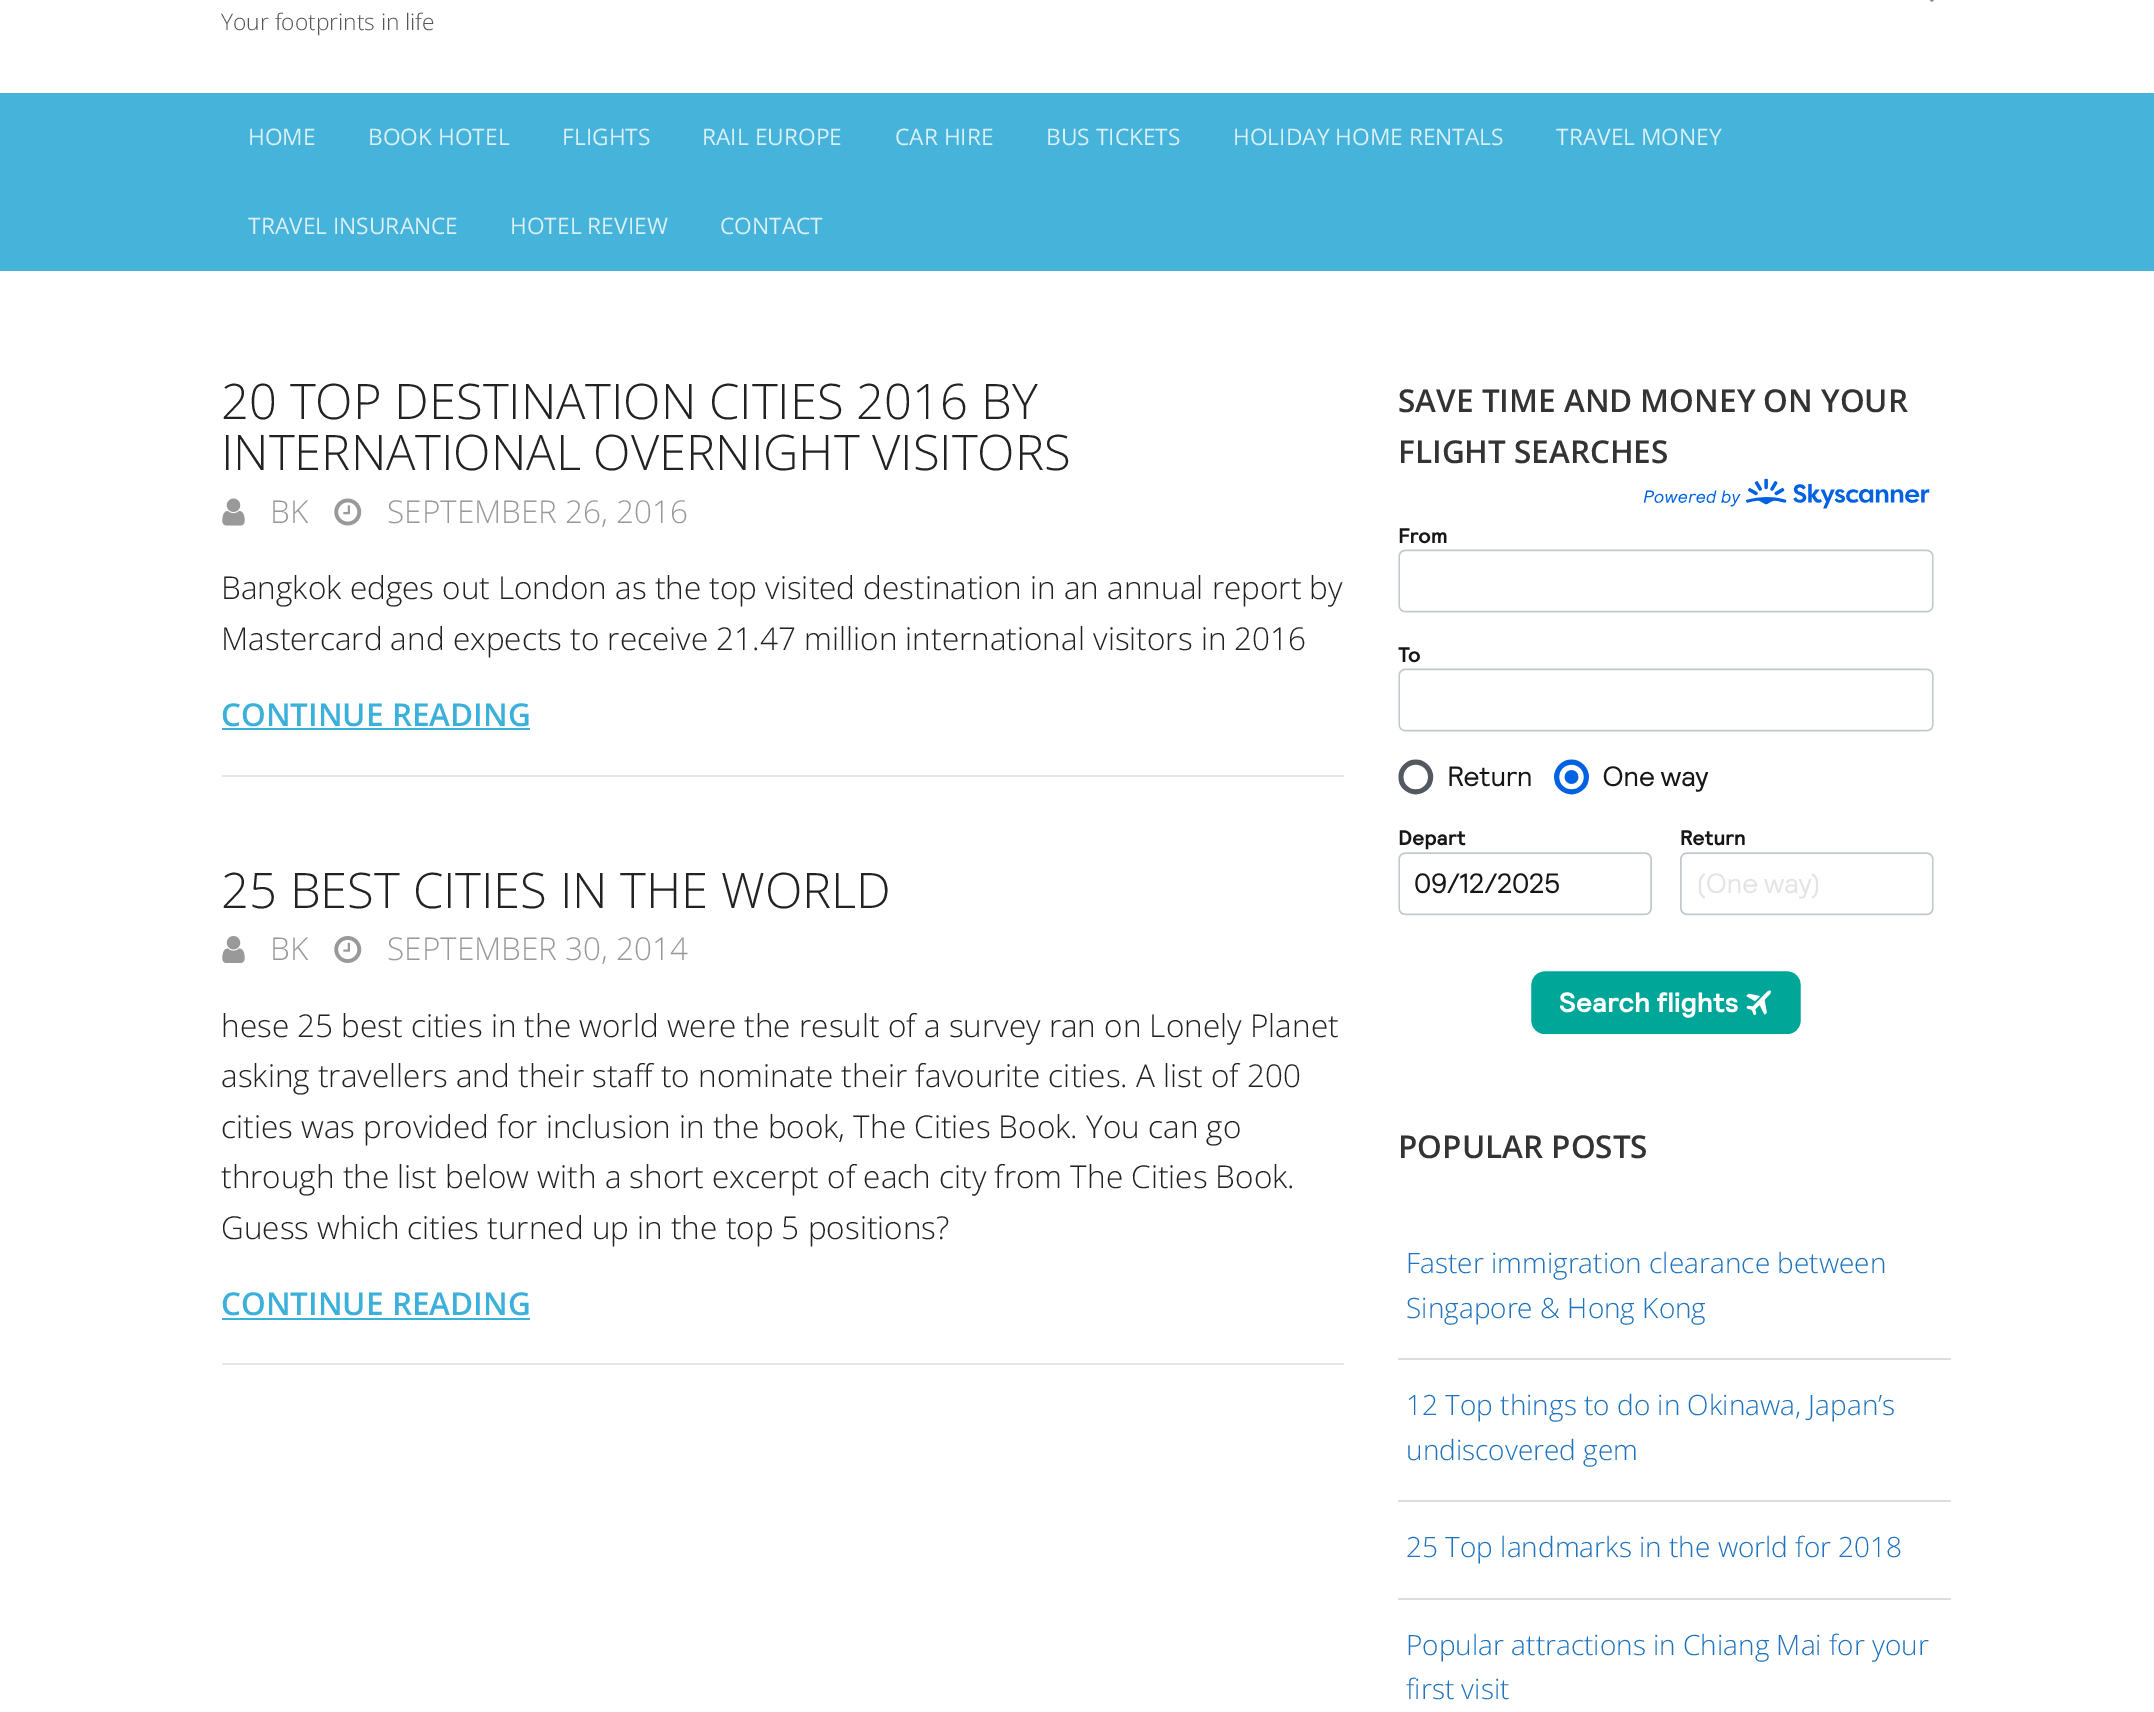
%!PS-Adobe-3.0
%%BoundingBox: 0 0 2154 1712
%%LanguageLevel: 3
%%Pages: 1
%%EndComments
%%BeginProlog
/fn { [ exch dup neg 0 0 3 -1 roll 0 0 ] selectfont } def
/tx { moveto show } def
/bx { rectfill } def
/im { 5 dict begin { /h /w /y /x /name } { exch def } forall
  gsave x y translate w h scale
  w h 8 [w 0 0 h 0 0] name (r) file false 3 colorimage grestore end } def
%%EndProlog
%%BeginSetup
<< /PageSize [2154 1712] >> setpagedevice
%%EndSetup
%%Page: 1 1
0 1712 translate 1 -1 scale
4 setmiterlimit
1 setgray
0 0 2154 1712 bx
(image0.raw) 1929 0 5 2 im
/OpenSans-Light 22.75 fn
0.333 setgray
(Your footprints in life) 221 30 tx
0.275 0.702 0.859 setrgbcolor
0 93 2154 178 bx
/OpenSans-Regular 22.75 fn
0.859 0.941 0.969 setrgbcolor
(HOME) 248 145 tx
(BOOK HOTEL) 368 145 tx
(FLIGHTS) 562 145 tx
(RAIL EUROPE) 702 145 tx
(CAR HIRE) 895 145 tx
(BUS TICKETS) 1046 145 tx
(HOLIDAY HOME RENTALS) 1233 145 tx
(TRAVEL MONEY) 1556 145 tx
(TRAVEL INSURANCE) 248 234 tx
(HOTEL REVIEW) 510 234 tx
(CONTACT) 720 234 tx
/OpenSans-Light 49 fn
0.133 setgray
(20 TOP DESTINATION CITIES 2016 BY) 221 419 tx
(INTERNATIONAL OVERNIGHT VISITORS) 221 470 tx
(image1.raw) 222 498 23 28 im
/OpenSans-Light 31.5 fn
0.6 setgray
(BK) 270 523 tx
(image2.raw) 334 498 28 28 im
(SEPTEMBER 26, 2016) 387 523 tx
0.133 setgray
(Bangkok edges out London as the top visited destination in an annual report by) 221 599 tx
(Mastercard and expects to receive 21.47 million international visitors in 2016) 221 650 tx
/OpenSans-SemiBold 31.5 fn
0.227 0.69 0.859 setrgbcolor
(CONTINUE READING) 221 726 tx
222 728 308 2 bx
0.902 setgray
222 775 1122 2 bx
/OpenSans-Light 49 fn
0.133 setgray
(25 BEST CITIES IN THE WORLD) 221 908 tx
(image3.raw) 222 936 23 27 im
/OpenSans-Light 31.5 fn
0.6 setgray
(BK) 270 960 tx
(image4.raw) 334 936 28 27 im
(SEPTEMBER 30, 2014) 387 960 tx
0.133 setgray
(hese 25 best cities in the world were the result of a survey ran on Lonely Planet) 221 1037 tx
(asking travellers and their staff to nominate their favourite cities. A list of 200) 221 1087 tx
(cities was provided for inclusion in the book, The Cities Book. You can go) 221 1138 tx
(through the list below with a short excerpt of each city from The Cities Book.) 221 1188 tx
(Guess which cities turned up in the top 5 positions?) 221 1239 tx
/OpenSans-SemiBold 31.5 fn
0.227 0.69 0.859 setrgbcolor
(CONTINUE READING) 221 1315 tx
222 1318 308 2 bx
0.902 setgray
222 1363 1122 2 bx
0.2 setgray
(SAVE TIME AND MONEY ON YOUR) 1398 412 tx
(FLIGHT SEARCHES) 1398 463 tx
(image5.raw) 1398 478 536 557 im
(POPULAR POSTS) 1398 1158 tx
0.867 setgray
1398 1358 553 2 bx
/OpenSans-Light 28 fn
0.118 0.451 0.745 setrgbcolor
(Faster immigration clearance between) 1406 1273 tx
(Singapore & Hong Kong) 1406 1318 tx
0.867 setgray
1398 1500 553 2 bx
0.118 0.451 0.745 setrgbcolor
(12 Top things to do in Okinawa, Japan’s) 1406 1415 tx
(undiscovered gem) 1406 1460 tx
0.867 setgray
1398 1598 553 2 bx
0.118 0.451 0.745 setrgbcolor
(25 Top landmarks in the world for 2018) 1406 1557 tx
(Popular attractions in Chiang Mai for your) 1406 1655 tx
(first visit) 1406 1699 tx
showpage
%%EOF
